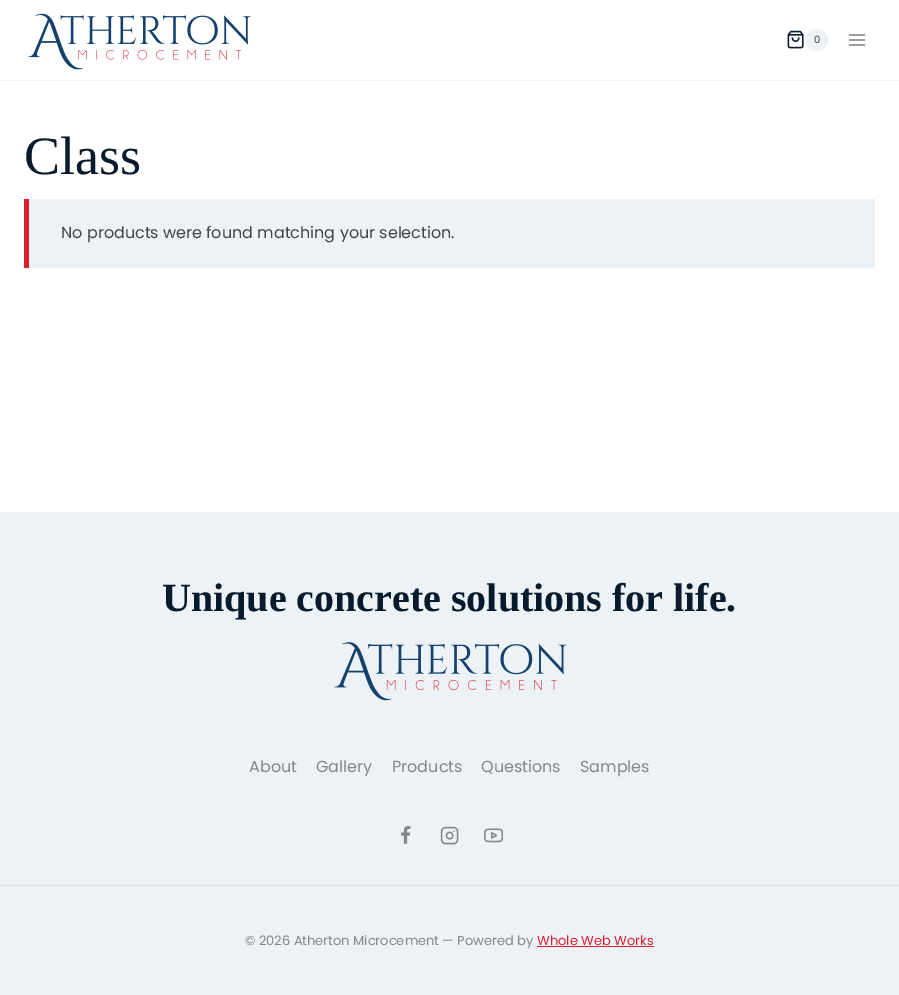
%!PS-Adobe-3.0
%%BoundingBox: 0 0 899 995
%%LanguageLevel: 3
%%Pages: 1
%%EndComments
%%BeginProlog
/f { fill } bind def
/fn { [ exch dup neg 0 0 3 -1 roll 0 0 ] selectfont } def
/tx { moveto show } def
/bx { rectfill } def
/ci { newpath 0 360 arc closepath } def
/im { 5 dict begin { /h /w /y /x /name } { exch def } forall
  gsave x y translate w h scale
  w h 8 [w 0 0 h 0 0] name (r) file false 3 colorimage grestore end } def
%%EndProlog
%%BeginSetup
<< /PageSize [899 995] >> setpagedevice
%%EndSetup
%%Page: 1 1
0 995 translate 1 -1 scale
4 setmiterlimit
1 setgray
0 0 899 995 bx
0.929 0.949 0.969 setrgbcolor
0 80 899 1 bx
(image0.raw) 28 13 223 57 im
(image1.raw) 787 30 17 19 im
817 40 11 ci f
/Poppins-Regular 10 fn
0.267 setgray
(0) 814 43 tx
(image2.raw) 848 34 18 12 im
/LiberationSerif-Regular 54 fn
0.031 0.106 0.176 setrgbcolor
(Class) 24 174 tx
0.929 0.949 0.969 setrgbcolor
29 199 846 69 bx
0.847 0.122 0.169 setrgbcolor
24 199 5 69 bx
/Poppins-Regular 16 fn
0.267 setgray
(No products were found matching your selection.) 61 238 tx
0.929 0.949 0.969 setrgbcolor
0 512 899 483 bx
/LiberationSerif-Bold 40 fn
0.031 0.106 0.176 setrgbcolor
(Unique concrete solutions for life.) 162 611 tx
(image3.raw) 334 642 233 59 im
/Poppins-Regular 16 fn
0.525 setgray
(About) 249 772 tx
(Gallery) 316 772 tx
(Products) 392 772 tx
(Questions) 481 772 tx
(Samples) 580 772 tx
(image4.raw) 401 826 10 18 im
(image5.raw) 440 826 19 19 im
(image6.raw) 484 828 19 15 im
0.859 0.871 0.886 setrgbcolor
0 885 899 1 bx
/Poppins-Regular 13 fn
0.525 setgray
(© 2026 Atherton Microcement — Powered by) 245 945 tx
0.847 0.122 0.169 setrgbcolor
(Whole Web Works) 537 945 tx
537 946 117 1 bx
showpage
%%EOF
